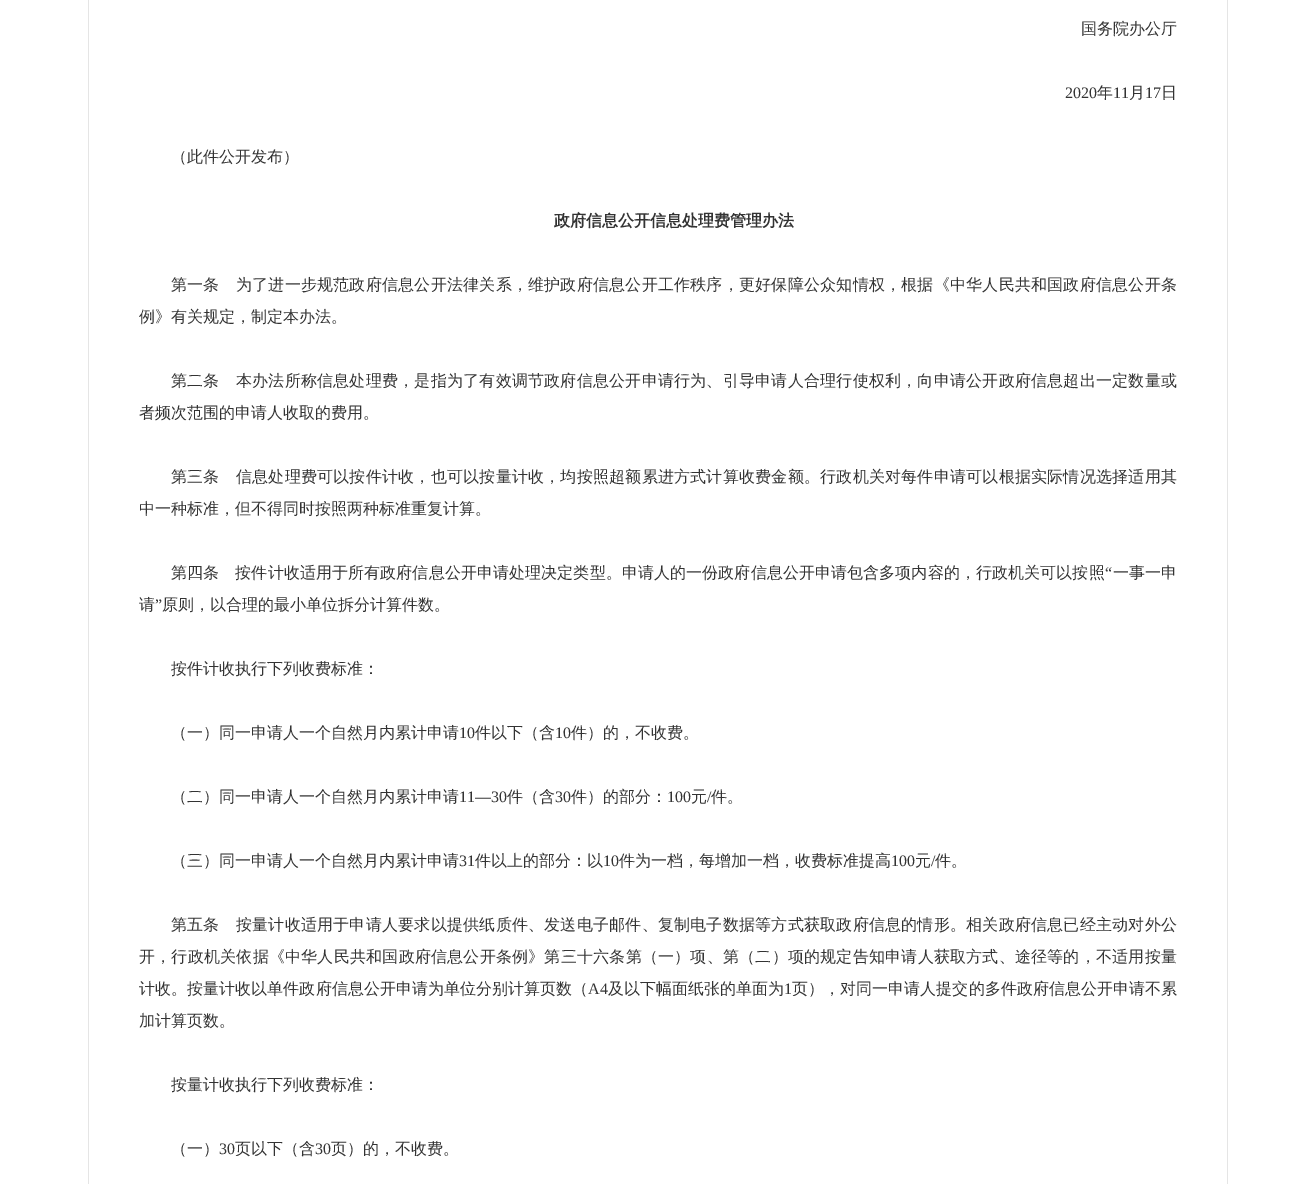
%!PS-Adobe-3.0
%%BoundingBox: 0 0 1316 1184
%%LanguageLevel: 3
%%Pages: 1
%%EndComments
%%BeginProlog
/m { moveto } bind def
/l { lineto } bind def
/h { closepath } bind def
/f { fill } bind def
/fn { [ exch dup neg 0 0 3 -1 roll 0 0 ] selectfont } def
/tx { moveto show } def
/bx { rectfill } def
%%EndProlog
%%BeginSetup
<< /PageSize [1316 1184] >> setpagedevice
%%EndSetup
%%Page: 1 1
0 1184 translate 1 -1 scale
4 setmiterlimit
1 setgray
0 0 1316 1184 bx
0.898 setgray
1228 -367 m 1228 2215 l 1227 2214 l 1227 -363 l h f
88 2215 m 88 -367 l 89 -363 l 89 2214 l h f
/WenQuanYiZenHei-Medium 16 fn
0.2 setgray
(国务院办公厅) 1081 34 tx
/LiberationSerif-Regular 16 fn
(2020) 1065 98 tx
/WenQuanYiZenHei-Medium 16 fn
(年) 1097 98 tx
/LiberationSerif-Regular 16 fn
(11) 1113 98 tx
/WenQuanYiZenHei-Medium 16 fn
(月) 1129 98 tx
/LiberationSerif-Regular 16 fn
(17) 1145 98 tx
/WenQuanYiZenHei-Medium 16 fn
(日) 1161 98 tx
(（此件公开发布）) 171 162 tx
/WenQuanYiZenHei-Bold 16 fn
(政府信息公开信息处理费管理办法) 554 226 tx
/WenQuanYiZenHei-Medium 16 fn
171 290 m 0.23 0 (第一条　为了进一步规范政府信息公开法律关系，维护政府信息公开工作秩序，更好保障公众知情权，根据《中华人民共和国政府信息公开条) ashow
(例》有关规定，制定本办法。) 139 322 tx
171 386 m 0.23 0 (第二条　本办法所称信息处理费，是指为了有效调节政府信息公开申请行为、引导申请人合理行使权利，向申请公开政府信息超出一定数量或) ashow
(者频次范围的申请人收取的费用。) 139 418 tx
171 482 m 0.23 0 (第三条　信息处理费可以按件计收，也可以按量计收，均按照超额累进方式计算收费金额。行政机关对每件申请可以根据实际情况选择适用其) ashow
(中一种标准，但不得同时按照两种标准重复计算。) 139 514 tx
171 578 m 0.1 0 (第四条　按件计收适用于所有政府信息公开申请处理决定类型。申请人的一份政府信息公开申请包含多项内容的，行政机关可以按照) ashow
/LiberationSerif-Regular 16 fn
1105 578 m 0.1 0 (“) ashow
/WenQuanYiZenHei-Medium 16 fn
1113 578 m 0.1 0 (一事一申) ashow
(请) 139 610 tx
/LiberationSerif-Regular 16 fn
(”) 155 610 tx
/WenQuanYiZenHei-Medium 16 fn
(原则，以合理的最小单位拆分计算件数。) 162 610 tx
(按件计收执行下列收费标准：) 171 674 tx
(（一）同一申请人一个自然月内累计申请) 171 738 tx
/LiberationSerif-Regular 16 fn
(10) 459 738 tx
/WenQuanYiZenHei-Medium 16 fn
(件以下（含) 475 738 tx
/LiberationSerif-Regular 16 fn
(10) 555 738 tx
/WenQuanYiZenHei-Medium 16 fn
(件）的，不收费。) 571 738 tx
(（二）同一申请人一个自然月内累计申请) 171 802 tx
/LiberationSerif-Regular 16 fn
(11—30) 459 802 tx
/WenQuanYiZenHei-Medium 16 fn
(件（含) 507 802 tx
/LiberationSerif-Regular 16 fn
(30) 555 802 tx
/WenQuanYiZenHei-Medium 16 fn
(件）的部分：) 571 802 tx
/LiberationSerif-Regular 16 fn
(100) 667 802 tx
/WenQuanYiZenHei-Medium 16 fn
(元) 691 802 tx
/LiberationSerif-Regular 16 fn
(/) 707 802 tx
/WenQuanYiZenHei-Medium 16 fn
(件。) 711 802 tx
(（三）同一申请人一个自然月内累计申请) 171 866 tx
/LiberationSerif-Regular 16 fn
(31) 459 866 tx
/WenQuanYiZenHei-Medium 16 fn
(件以上的部分：以) 475 866 tx
/LiberationSerif-Regular 16 fn
(10) 603 866 tx
/WenQuanYiZenHei-Medium 16 fn
(件为一档，每增加一档，收费标准提高) 619 866 tx
/LiberationSerif-Regular 16 fn
(100) 891 866 tx
/WenQuanYiZenHei-Medium 16 fn
(元) 915 866 tx
/LiberationSerif-Regular 16 fn
(/) 931 866 tx
/WenQuanYiZenHei-Medium 16 fn
(件。) 935 866 tx
171 930 m 0.23 0 (第五条　按量计收适用于申请人要求以提供纸质件、发送电子邮件、复制电子数据等方式获取政府信息的情形。相关政府信息已经主动对外公) ashow
139 962 m 0.22 0 (开，行政机关依据《中华人民共和国政府信息公开条例》第三十六条第（一）项、第（二）项的规定告知申请人获取方式、途径等的，不适用按量) ashow
139 994 m 0.05 0 (计收。按量计收以单件政府信息公开申请为单位分别计算页数（) ashow
/LiberationSerif-Regular 16 fn
588 994 m 0.05 0 (A4) ashow
/WenQuanYiZenHei-Medium 16 fn
608 994 m 0.05 0 (及以下幅面纸张的单面为) ashow
/LiberationSerif-Regular 16 fn
784 994 m 0.05 0 (1) ashow
/WenQuanYiZenHei-Medium 16 fn
792 994 m 0.05 0 (页），对同一申请人提交的多件政府信息公开申请不累) ashow
(加计算页数。) 139 1026 tx
(按量计收执行下列收费标准：) 171 1090 tx
(（一）) 171 1154 tx
/LiberationSerif-Regular 16 fn
(30) 219 1154 tx
/WenQuanYiZenHei-Medium 16 fn
(页以下（含) 235 1154 tx
/LiberationSerif-Regular 16 fn
(30) 315 1154 tx
/WenQuanYiZenHei-Medium 16 fn
(页）的，不收费。) 331 1154 tx
showpage
%%EOF
